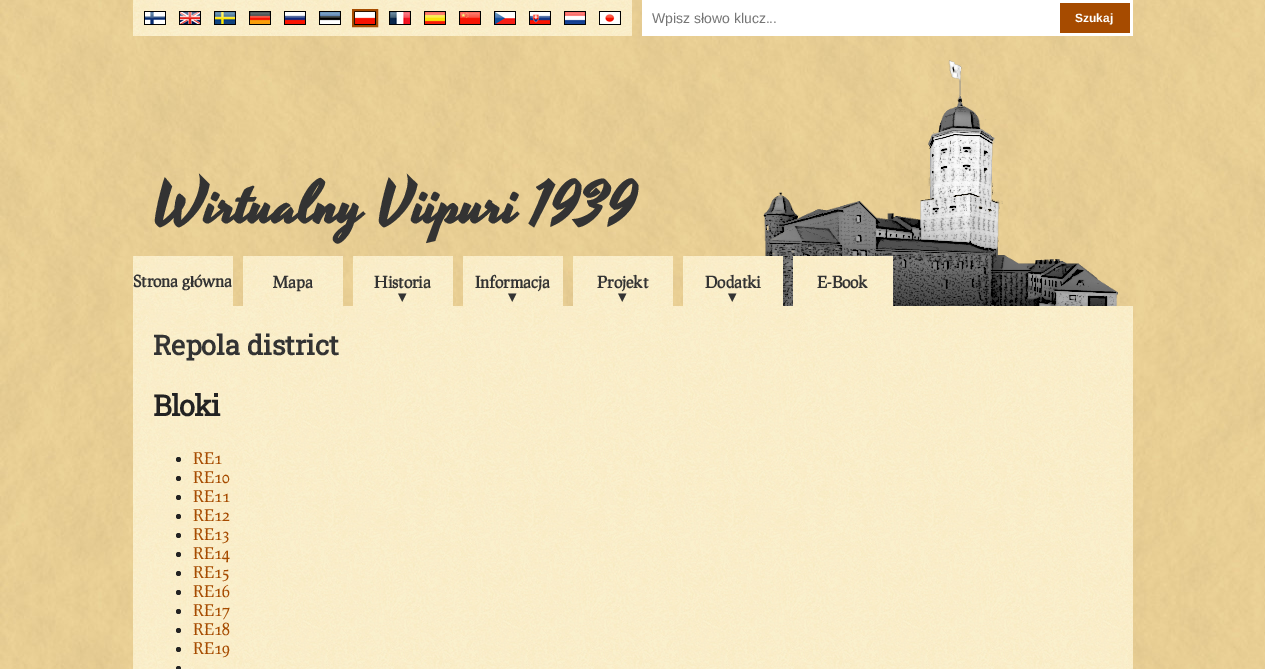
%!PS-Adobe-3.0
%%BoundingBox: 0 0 1265 669
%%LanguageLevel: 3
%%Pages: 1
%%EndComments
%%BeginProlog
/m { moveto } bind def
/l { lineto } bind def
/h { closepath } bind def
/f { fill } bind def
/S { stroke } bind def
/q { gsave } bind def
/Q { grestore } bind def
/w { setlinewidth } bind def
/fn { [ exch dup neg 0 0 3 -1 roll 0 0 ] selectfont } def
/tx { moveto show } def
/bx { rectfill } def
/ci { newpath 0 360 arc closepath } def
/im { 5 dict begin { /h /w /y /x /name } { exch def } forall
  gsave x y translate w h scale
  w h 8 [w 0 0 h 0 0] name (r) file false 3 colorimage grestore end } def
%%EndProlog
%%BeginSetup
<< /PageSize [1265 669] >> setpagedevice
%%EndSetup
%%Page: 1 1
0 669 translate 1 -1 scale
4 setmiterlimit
1 setgray
0 0 1265 669 bx
(image0.raw) 0 0 1265 669 im
(image1.raw) 133 0 499 36 im
0 setgray
144 11 22 14 bx
(image2.raw) 145 12 20 12 im
179 11 22 14 bx
(image3.raw) 180 12 20 12 im
214 11 22 14 bx
(image4.raw) 215 12 20 12 im
249 11 22 14 bx
(image5.raw) 250 12 20 12 im
284 11 22 14 bx
(image6.raw) 285 12 20 12 im
319 11 22 14 bx
(image7.raw) 320 12 20 12 im
353 10 m 377 10 l 377 26 l 353 26 l h q f Q
0.651 0.294 0 setrgbcolor
2 w
S
(image8.raw) 355 12 20 12 im
0 setgray
389 11 22 14 bx
(image9.raw) 390 12 20 12 im
424 11 22 14 bx
(image10.raw) 425 12 20 12 im
459 11 22 14 bx
(image11.raw) 460 12 20 12 im
494 11 22 14 bx
(image12.raw) 495 12 20 12 im
529 11 22 14 bx
(image13.raw) 530 12 20 12 im
564 11 22 14 bx
(image14.raw) 565 12 20 12 im
599 11 22 14 bx
(image15.raw) 600 12 20 12 im
1 setgray
642 0 491 36 bx
/LiberationSans-Regular 14 fn
0.459 setgray
(Wpisz słowo klucz...) 652 23 tx
0.651 0.294 0 setrgbcolor
1060 3 70 30 bx
/LiberationSans-Bold 12 fn
1 setgray
(Szukaj) 1075 22 tx
(image16.raw) 763 60 355 246 im
/Yesteryear-Bold 60 fn
0.2 setgray
(Wirtualny Viipuri 1939) 153 222 tx
(image17.raw) 133 256 100 50 im
/Prociono-Bold 16 fn
(Strona g) 133 287 tx
/LiberationSerif-Bold 16 fn
(ł) 190 287 tx
/Prociono-Bold 16 fn
(ówna) 194 287 tx
(image17.raw) 243 256 100 50 im
(Mapa) 273 288 tx
(image17.raw) 353 256 100 50 im
(Historia) 374 288 tx
/DejaVuSans-Bold 16 fn
(▾) 398 302 tx
(image17.raw) 463 256 100 50 im
/Prociono-Bold 16 fn
(Informacja) 475 288 tx
/DejaVuSans-Bold 16 fn
(▾) 508 302 tx
(image17.raw) 573 256 100 50 im
/Prociono-Bold 16 fn
(Projekt) 597 288 tx
/DejaVuSans-Bold 16 fn
(▾) 618 302 tx
(image17.raw) 683 256 100 50 im
/Prociono-Bold 16 fn
(Dodatki) 705 288 tx
/DejaVuSans-Bold 16 fn
(▾) 728 302 tx
(image17.raw) 793 256 100 50 im
/Prociono-Bold 16 fn
(E-Book) 817 288 tx
(image18.raw) 133 306 1000 363 im
/RobotoSlab-Bold 27.25 fn
(Repola district) 153 355 tx
/RobotoSlab-Bold 29 fn
0.133 setgray
153 416 m -1 0 (Bloki) ashow
178.5 459.5 2.5 ci f
/Prociono-Regular 16 fn
0.651 0.294 0 setrgbcolor
(RE1) 193 464 tx
0.133 setgray
178.5 478.5 2.5 ci f
0.651 0.294 0 setrgbcolor
(RE10) 193 483 tx
0.133 setgray
178.5 497.5 2.5 ci f
0.651 0.294 0 setrgbcolor
(RE11) 193 502 tx
0.133 setgray
178.5 516.5 2.5 ci f
0.651 0.294 0 setrgbcolor
(RE12) 193 521 tx
0.133 setgray
178.5 535.5 2.5 ci f
0.651 0.294 0 setrgbcolor
(RE13) 193 540 tx
0.133 setgray
178.5 554.5 2.5 ci f
0.651 0.294 0 setrgbcolor
(RE14) 193 559 tx
0.133 setgray
178.5 573.5 2.5 ci f
0.651 0.294 0 setrgbcolor
(RE15) 193 578 tx
0.133 setgray
178.5 592.5 2.5 ci f
0.651 0.294 0 setrgbcolor
(RE16) 193 597 tx
0.133 setgray
178.5 611.5 2.5 ci f
0.651 0.294 0 setrgbcolor
(RE17) 193 616 tx
0.133 setgray
178.5 630.5 2.5 ci f
0.651 0.294 0 setrgbcolor
(RE18) 193 635 tx
0.133 setgray
178.5 649.5 2.5 ci f
0.651 0.294 0 setrgbcolor
(RE19) 193 654 tx
0.133 setgray
178.5 668.5 2.5 ci f
showpage
%%EOF
